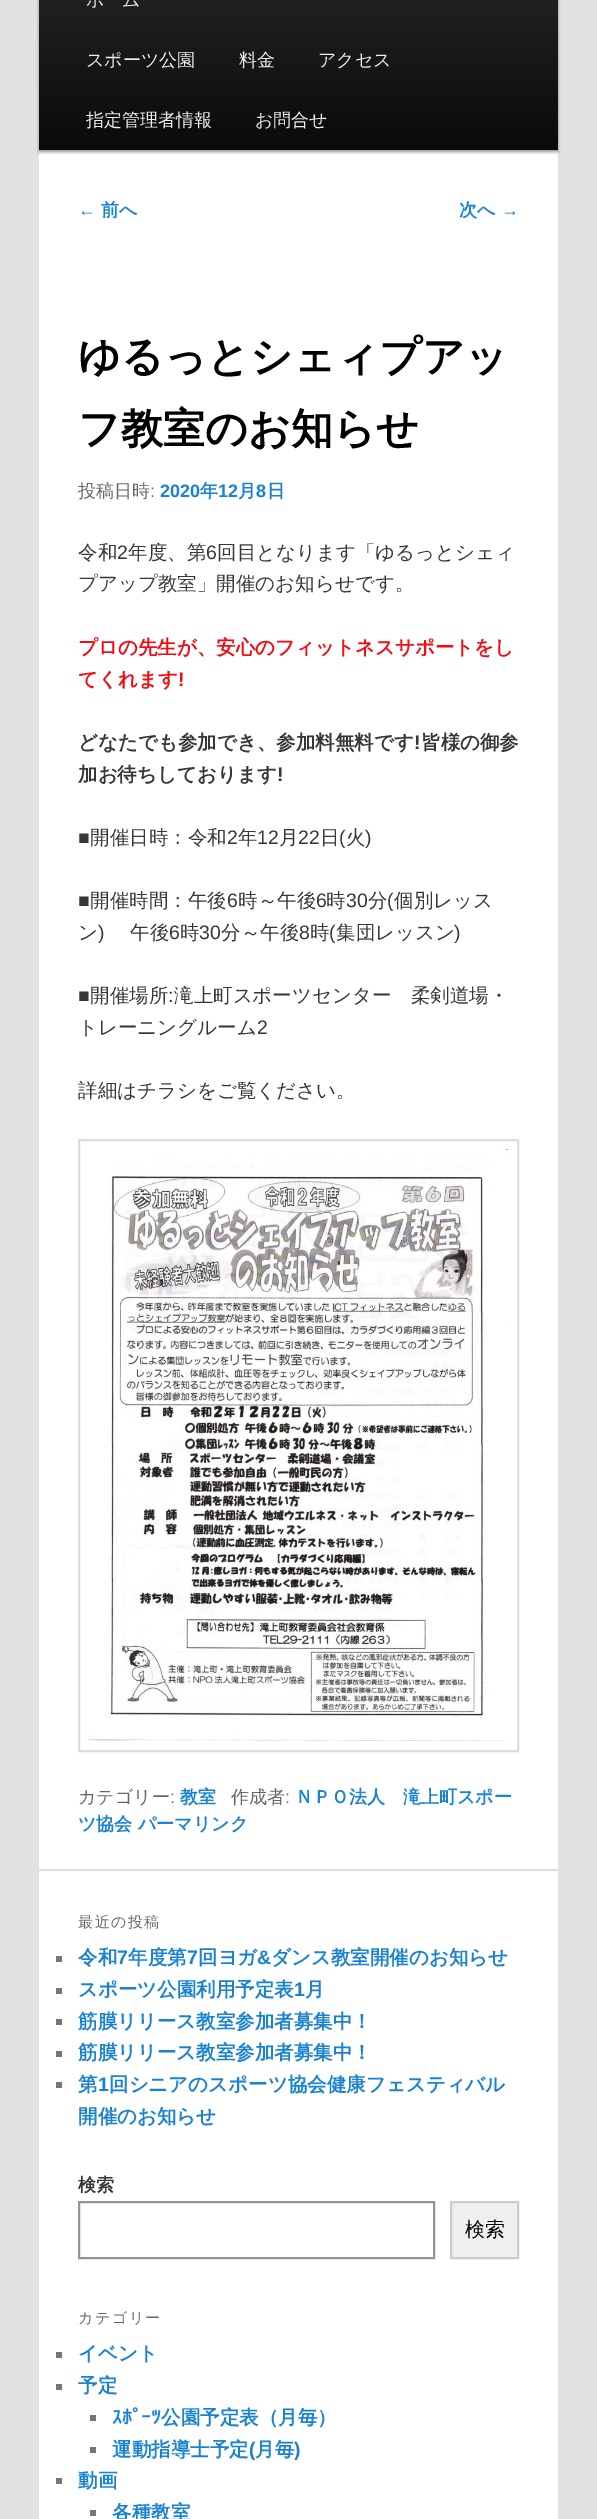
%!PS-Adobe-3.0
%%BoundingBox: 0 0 597 2519
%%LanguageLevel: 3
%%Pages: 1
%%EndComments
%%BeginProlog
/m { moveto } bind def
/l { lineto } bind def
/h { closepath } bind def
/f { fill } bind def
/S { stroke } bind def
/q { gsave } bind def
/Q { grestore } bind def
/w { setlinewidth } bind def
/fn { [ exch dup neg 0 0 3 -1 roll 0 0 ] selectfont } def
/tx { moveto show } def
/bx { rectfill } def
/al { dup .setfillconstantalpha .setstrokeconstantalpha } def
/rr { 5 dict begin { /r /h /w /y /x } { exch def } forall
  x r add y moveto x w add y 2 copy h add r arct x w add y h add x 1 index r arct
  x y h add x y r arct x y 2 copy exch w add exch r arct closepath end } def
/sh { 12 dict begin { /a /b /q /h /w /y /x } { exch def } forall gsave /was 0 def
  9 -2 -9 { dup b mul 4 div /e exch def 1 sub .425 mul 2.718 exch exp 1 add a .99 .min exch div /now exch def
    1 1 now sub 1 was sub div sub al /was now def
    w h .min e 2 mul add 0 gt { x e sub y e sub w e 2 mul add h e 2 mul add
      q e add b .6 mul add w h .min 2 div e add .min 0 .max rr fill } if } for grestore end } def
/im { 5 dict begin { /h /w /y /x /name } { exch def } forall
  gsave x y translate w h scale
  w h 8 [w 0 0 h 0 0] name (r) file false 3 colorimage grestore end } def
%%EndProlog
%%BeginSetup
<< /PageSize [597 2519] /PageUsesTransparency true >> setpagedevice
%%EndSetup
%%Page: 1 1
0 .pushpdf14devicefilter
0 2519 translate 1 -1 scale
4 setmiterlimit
0.886 setgray
0 0 597 2519 bx
1 setgray
39 150 519 2369 bx
0 setgray
39 -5 519 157 0 1.5 0.4 sh
q 39 0 m 558 0 l 558 150 l 39 150 l h clip newpath
<< /ShadingType 2 /ColorSpace /DeviceRGB /Coords [299 -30 299 150] /Extend [true true] /Function << /FunctionType 2 /Domain [0 1] /C0 [0.145 0.145 0.145] /C1 [0.039 0.039 0.039] /N 1 >> >> shfill Q
/WenQuanYiZenHei-Medium 18 fn
0.933 setgray
(ホーム) 86 6 tx
(スポーツ公園) 86 66 tx
(料金) 239 66 tx
(アクセス) 318 66 tx
(指定管理者情報) 86 126 tx
(お問合せ) 255 126 tx
/LiberationSans-Regular 18 fn
0.098 0.51 0.82 setrgbcolor
(←) 78 216 tx
/WenQuanYiZenHei-Bold 18 fn
(前へ) 101 216 tx
(次へ) 459 216 tx
/LiberationSans-Regular 18 fn
(→) 501 216 tx
/WenQuanYiZenHei-Bold 42 fn
0 setgray
(ゆるっとシェィプアッ) 78 371 tx
(フ教室のお知らせ) 78 443 tx
/WenQuanYiZenHei-Medium 18 fn
0.4 setgray
(投稿日時) 78 497 tx
/LiberationSans-Regular 18 fn
(:) 150 497 tx
/LiberationSans-Bold 18 fn
0.098 0.51 0.82 setrgbcolor
(2020) 160 497 tx
/WenQuanYiZenHei-Bold 18 fn
(年) 200 497 tx
/LiberationSans-Bold 18 fn
(12) 218 497 tx
/WenQuanYiZenHei-Bold 18 fn
(月) 238 497 tx
/LiberationSans-Bold 18 fn
(8) 256 497 tx
/WenQuanYiZenHei-Bold 18 fn
(日) 267 497 tx
/WenQuanYiZenHei-Medium 19.5 fn
0.216 setgray
(令和) 78 559 tx
/LiberationSans-Regular 19.5 fn
(2) 117 559 tx
/WenQuanYiZenHei-Medium 19.5 fn
(年度、第) 128 559 tx
/LiberationSans-Regular 19.5 fn
(6) 206 559 tx
/WenQuanYiZenHei-Medium 19.5 fn
(回目となります「ゆるっとシェィ) 217 559 tx
(プアップ教室」開催のお知らせです。) 78 590 tx
/WenQuanYiZenHei-Bold 19.5 fn
0.957 0.039 0.067 setrgbcolor
(プロの先生が、安心のフィットネスサポートをし) 78 654 tx
(てくれます) 78 686 tx
/LiberationSans-Bold 19.5 fn
(!) 178 686 tx
/WenQuanYiZenHei-Bold 19.5 fn
0.216 setgray
(どなたでも参加でき、参加料無料です) 78 749 tx
/LiberationSans-Bold 19.5 fn
(!) 414 749 tx
/WenQuanYiZenHei-Bold 19.5 fn
(皆様の御参) 421 749 tx
(加お待ちしております) 78 781 tx
/LiberationSans-Bold 19.5 fn
(!) 277 781 tx
/LiberationSans-Regular 19.5 fn
(■) 78 844 tx
/WenQuanYiZenHei-Medium 19.5 fn
(開催日時：令和) 90 844 tx
/LiberationSans-Regular 19.5 fn
(2) 227 844 tx
/WenQuanYiZenHei-Medium 19.5 fn
(年) 238 844 tx
/LiberationSans-Regular 19.5 fn
(12) 257 844 tx
/WenQuanYiZenHei-Medium 19.5 fn
(月) 279 844 tx
/LiberationSans-Regular 19.5 fn
(22) 298 844 tx
/WenQuanYiZenHei-Medium 19.5 fn
(日) 320 844 tx
/LiberationSans-Regular 19.5 fn
(\() 339 844 tx
/WenQuanYiZenHei-Medium 19.5 fn
(火) 346 844 tx
/LiberationSans-Regular 19.5 fn
(\)) 365 844 tx
(■) 78 907 tx
/WenQuanYiZenHei-Medium 19.5 fn
(開催時間：午後) 90 907 tx
/LiberationSans-Regular 19.5 fn
(6) 227 907 tx
/WenQuanYiZenHei-Medium 19.5 fn
(時～午後) 238 907 tx
/LiberationSans-Regular 19.5 fn
(6) 316 907 tx
/WenQuanYiZenHei-Medium 19.5 fn
(時) 326 907 tx
/LiberationSans-Regular 19.5 fn
(30) 346 907 tx
/WenQuanYiZenHei-Medium 19.5 fn
(分) 368 907 tx
/LiberationSans-Regular 19.5 fn
(\() 387 907 tx
/WenQuanYiZenHei-Medium 19.5 fn
(個別レッス) 394 907 tx
(ン) 78 939 tx
/LiberationSans-Regular 19.5 fn
(\)) 98 939 tx
/WenQuanYiZenHei-Medium 19.5 fn
(午後) 130 939 tx
/LiberationSans-Regular 19.5 fn
(6) 169 939 tx
/WenQuanYiZenHei-Medium 19.5 fn
(時) 180 939 tx
/LiberationSans-Regular 19.5 fn
(30) 199 939 tx
/WenQuanYiZenHei-Medium 19.5 fn
(分～午後) 221 939 tx
/LiberationSans-Regular 19.5 fn
(8) 299 939 tx
/WenQuanYiZenHei-Medium 19.5 fn
(時) 310 939 tx
/LiberationSans-Regular 19.5 fn
(\() 329 939 tx
/WenQuanYiZenHei-Medium 19.5 fn
(集団レッスン) 336 939 tx
/LiberationSans-Regular 19.5 fn
(\)) 454 939 tx
(■) 78 1002 tx
/WenQuanYiZenHei-Medium 19.5 fn
(開催場所) 90 1002 tx
/LiberationSans-Regular 19.5 fn
(:) 168 1002 tx
/WenQuanYiZenHei-Medium 19.5 fn
(滝上町スポーツセンター　柔剣道場・) 174 1002 tx
(トレーニングルーム) 78 1034 tx
/LiberationSans-Regular 19.5 fn
(2) 257 1034 tx
/WenQuanYiZenHei-Medium 19.5 fn
(詳細はチラシをご覧ください。) 78 1097 tx
0.867 setgray
2 w
79 1140 439 611 rectstroke
(image0.raw) 88 1149 421 592 im
/WenQuanYiZenHei-Medium 18 fn
0.4 setgray
(カテゴリー) 78 1803 tx
/LiberationSans-Regular 18 fn
(:) 170 1803 tx
/WenQuanYiZenHei-Bold 18 fn
0.098 0.51 0.82 setrgbcolor
(教室) 180 1803 tx
/WenQuanYiZenHei-Medium 18 fn
0.4 setgray
(作成者) 231 1803 tx
/LiberationSans-Regular 18 fn
(:) 285 1803 tx
/WenQuanYiZenHei-Bold 18 fn
0.098 0.51 0.82 setrgbcolor
(ＮＰＯ法人　滝上町スポー) 295 1803 tx
(ツ協会) 78 1830 tx
(パーマリンク) 138 1830 tx
0.867 setgray
39 1869 519 2 bx
/WenQuanYiZenHei-Medium 15 fn
0.4 setgray
78 1927 m 1.5 0 (最近の投稿) ashow
0.467 setgray
56 1956 6 6 bx
/WenQuanYiZenHei-Bold 19.5 fn
0.098 0.51 0.82 setrgbcolor
(令和) 78 1964 tx
/LiberationSans-Bold 19.5 fn
(7) 117 1964 tx
/WenQuanYiZenHei-Bold 19.5 fn
(年度第) 128 1964 tx
/LiberationSans-Bold 19.5 fn
(7) 187 1964 tx
/WenQuanYiZenHei-Bold 19.5 fn
(回ヨガ) 198 1964 tx
/LiberationSans-Bold 19.5 fn
(&) 257 1964 tx
/WenQuanYiZenHei-Bold 19.5 fn
(ダンス教室開催のお知らせ) 271 1964 tx
0.467 setgray
56 1988 6 6 bx
0.098 0.51 0.82 setrgbcolor
(スポーツ公園利用予定表) 78 1996 tx
/LiberationSans-Bold 19.5 fn
(1) 294 1996 tx
/WenQuanYiZenHei-Bold 19.5 fn
(月) 305 1996 tx
0.467 setgray
56 2019 6 6 bx
0.098 0.51 0.82 setrgbcolor
(筋膜リリース教室参加者募集中！) 78 2028 tx
0.467 setgray
56 2051 6 6 bx
0.098 0.51 0.82 setrgbcolor
(筋膜リリース教室参加者募集中！) 78 2059 tx
0.467 setgray
56 2082 6 6 bx
0.098 0.51 0.82 setrgbcolor
(第) 78 2091 tx
/LiberationSans-Bold 19.5 fn
(1) 98 2091 tx
/WenQuanYiZenHei-Bold 19.5 fn
(回シニアのスポーツ協会健康フェスティバル) 109 2091 tx
(開催のお知らせ) 78 2123 tx
/WenQuanYiZenHei-Bold 18 fn
0.216 setgray
(検索) 78 2191 tx
0.58 setgray
79 2202 355 56 rectstroke
0.937 setgray
451 2202 m 518 2202 l 518 2258 l 451 2258 l h q f Q
0.8 setgray
S
/WenQuanYiZenHei-Medium 20 fn
0 setgray
(検索) 465 2236 tx
/WenQuanYiZenHei-Medium 15 fn
0.4 setgray
78 2323 m 1.5 0 (カテゴリー) ashow
0.467 setgray
56 2352 6 6 bx
/WenQuanYiZenHei-Bold 19.5 fn
0.098 0.51 0.82 setrgbcolor
(イベント) 78 2360 tx
0.467 setgray
56 2384 6 6 bx
0.098 0.51 0.82 setrgbcolor
(予定) 78 2392 tx
0.467 setgray
90 2415 6 6 bx
/IPAPGothic-Bold 19.5 fn
0.098 0.51 0.82 setrgbcolor
(ｽﾎﾟｰﾂ) 112 2424 tx
/WenQuanYiZenHei-Bold 19.5 fn
(公園予定表（月毎）) 161 2424 tx
0.467 setgray
90 2447 6 6 bx
0.098 0.51 0.82 setrgbcolor
(運動指導士予定) 112 2456 tx
/LiberationSans-Bold 19.5 fn
(\() 249 2456 tx
/WenQuanYiZenHei-Bold 19.5 fn
(月毎) 255 2456 tx
/LiberationSans-Bold 19.5 fn
(\)) 294 2456 tx
0.467 setgray
56 2478 6 6 bx
/WenQuanYiZenHei-Bold 19.5 fn
0.098 0.51 0.82 setrgbcolor
(動画) 78 2487 tx
0.467 setgray
90 2510 6 6 bx
0.098 0.51 0.82 setrgbcolor
(各種教室) 112 2519 tx
.poppdf14devicefilter showpage
%%EOF
